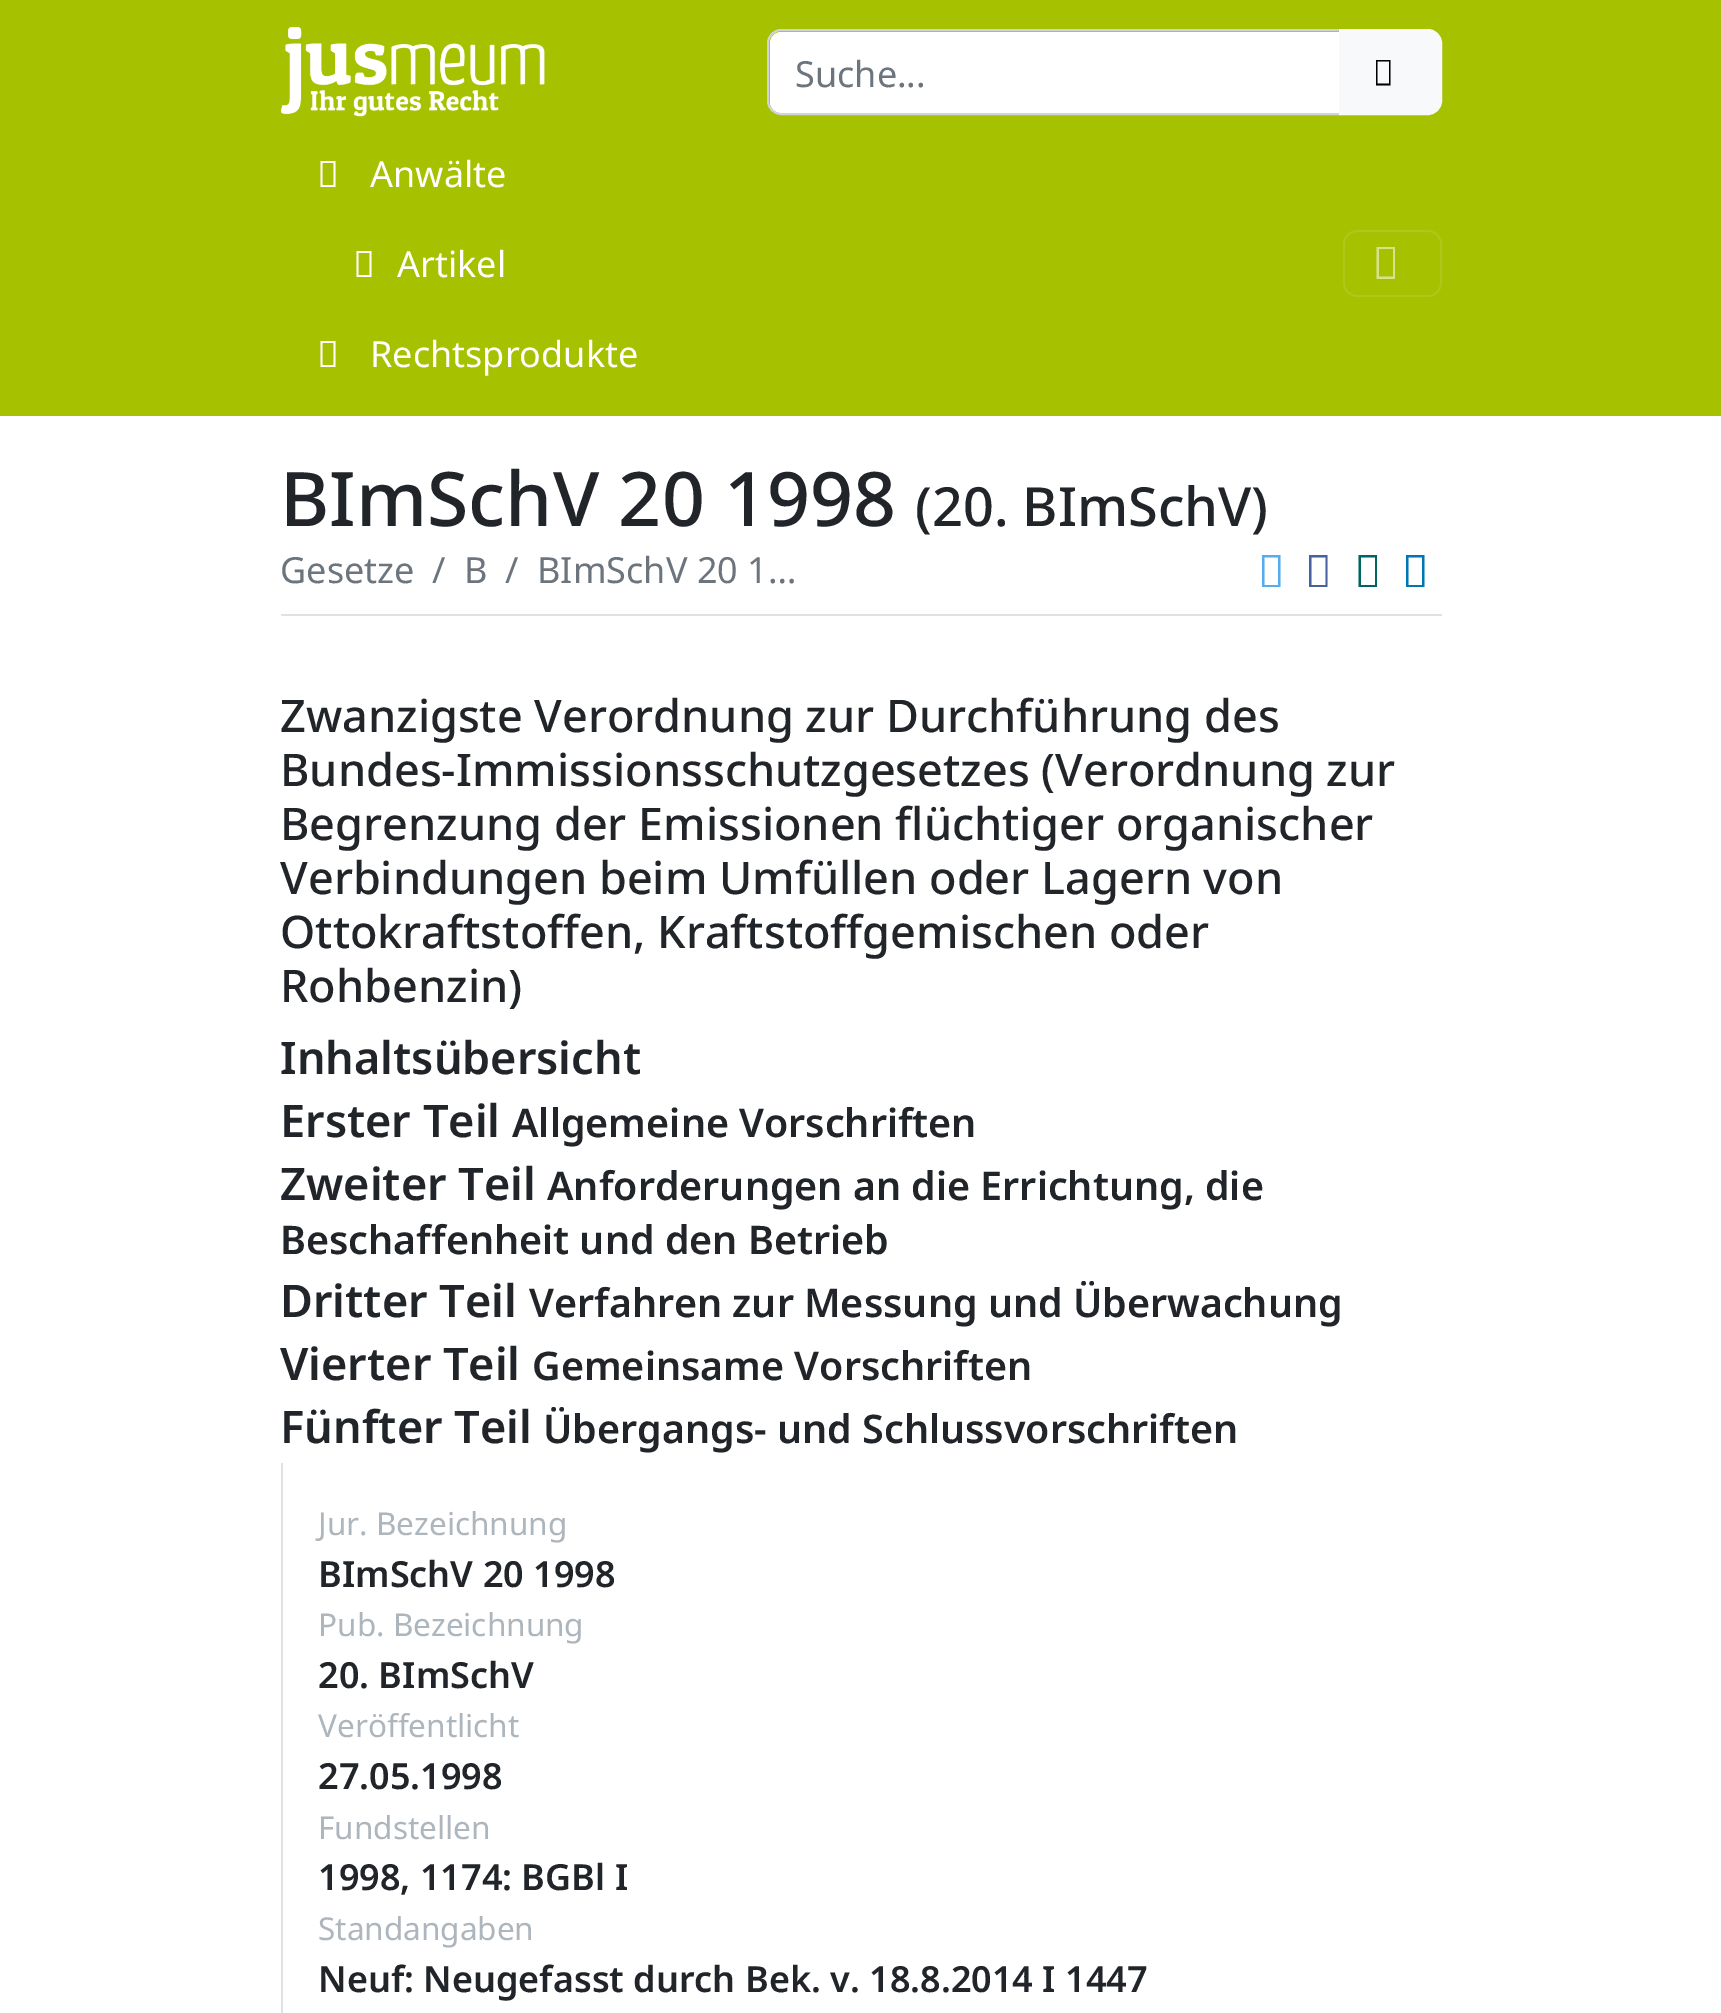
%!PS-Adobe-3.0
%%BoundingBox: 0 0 1721 2013
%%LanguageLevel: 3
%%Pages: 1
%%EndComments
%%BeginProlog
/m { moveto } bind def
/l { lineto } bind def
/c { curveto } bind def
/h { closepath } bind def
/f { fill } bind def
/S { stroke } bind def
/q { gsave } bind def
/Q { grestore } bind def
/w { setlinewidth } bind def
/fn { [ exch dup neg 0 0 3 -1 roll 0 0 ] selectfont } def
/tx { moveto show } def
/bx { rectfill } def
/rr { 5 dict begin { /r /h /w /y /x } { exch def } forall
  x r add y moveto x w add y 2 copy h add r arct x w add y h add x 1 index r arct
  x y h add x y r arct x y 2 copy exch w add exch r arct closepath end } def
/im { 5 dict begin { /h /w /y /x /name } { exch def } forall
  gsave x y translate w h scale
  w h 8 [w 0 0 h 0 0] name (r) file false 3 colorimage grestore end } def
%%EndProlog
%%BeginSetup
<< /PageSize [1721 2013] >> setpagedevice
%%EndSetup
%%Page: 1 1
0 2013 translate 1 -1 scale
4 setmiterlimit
1 setgray
0 0 1721 2013 bx
0.647 0.757 0 setrgbcolor
0 0 1721 416 bx
(image0.raw) 281 27 264 90 im
1 setgray
781 32 m 1339 32 l 1339 113 l 781 113 l 775 113 770 108 770 102 c 770 43 l 770 37 775 32 781 32 c h f
0.808 0.831 0.855 setrgbcolor
2 w
781 30 m 1340 30 l 1340 114 l 781 114 l 774 114 768 108 768 101 c 768 43 l 768 36 774 30 781 30 c h S
/NotoSans-Regular 36 fn
0.424 0.459 0.49 setrgbcolor
(Suche...) 795 87 tx
0.973 0.976 0.98 setrgbcolor
1340 30 m 1428 30 l 1435 30 1441 36 1441 43 c 1441 101 l 1441 108 1435 114 1428 114 c 1340 114 l h q f Q
S
0 setgray
1376 85.5 m 1376 60 l 1390.5 60 l 1390.5 85.5 l h 1377.5 83.5 m 1389 83.5 l 1389 61.5 l 1377.5 61.5 l h f
1 setgray
320.5 187 m 320.5 161 l 335.5 161 l 335.5 187 l h 322.5 185 m 333.5 185 l 333.5 163 l 322.5 163 l h f
(Anwälte) 370 187 tx
356.5 277 m 356.5 251 l 371.5 251 l 371.5 277 l h 358.5 275 m 369.5 275 l 369.5 253 l 358.5 253 l h f
(Artikel) 397 277 tx
320.5 367 m 320.5 341 l 335.5 341 l 335.5 367 l h 322.5 365 m 333.5 365 l 333.5 343 l 322.5 343 l h f
(Rechtsprodukte) 370 367 tx
0.682 0.78 0.102 setrgbcolor
1344 231 97 65 13 rr S
0.843 0.89 0.549 setrgbcolor
1376.5 279 m 1376.5 247 l 1395 247 l 1395 279 l h 1379 276.5 m 1393 276.5 l 1393 249 l 1379 249 l h f
/NotoSans-Medium 75.25 fn
0.129 0.145 0.161 setrgbcolor
(BImSchV 20 1998) 280 526 tx
/NotoSans-Medium 54 fn
(\(20. BImSchV\)) 915 526 tx
0.871 0.886 0.902 setrgbcolor
281 614 1161 2 bx
/NotoSans-Regular 36 fn
0.424 0.459 0.49 setrgbcolor
(Gesetze) 280 583 tx
(/) 432 583 tx
(B) 464 583 tx
(/) 505 583 tx
(BImSchV 20 1…) 537 583 tx
0.333 0.675 0.933 setrgbcolor
1262 587 m 1262 555 l 1280.5 555 l 1280.5 587 l h 1264.5 585 m 1278 585 l 1278 557.5 l 1264.5 557.5 l h f
0.275 0.384 0.62 setrgbcolor
1309 587 m 1309 555 l 1327.5 555 l 1327.5 587 l h 1311.5 585 m 1325.5 585 l 1325.5 557.5 l 1311.5 557.5 l h f
0 0.392 0.392 setrgbcolor
1358.5 587 m 1358.5 555 l 1377 555 l 1377 587 l h 1361 585 m 1375 585 l 1375 557.5 l 1361 557.5 l h f
0 0.467 0.71 setrgbcolor
1406 587 m 1406 555 l 1424.5 555 l 1424.5 587 l h 1408.5 585 m 1422 585 l 1422 557.5 l 1408.5 557.5 l h f
/NotoSans-Medium 45 fn
0.129 0.145 0.161 setrgbcolor
(Zwanzigste Verordnung zur Durchführung des) 280 732 tx
(Bundes-Immissionsschutzgesetzes \(Verordnung zur) 280 786 tx
(Begrenzung der Emissionen flüchtiger organischer) 280 840 tx
(Verbindungen beim Umfüllen oder Lagern von) 280 894 tx
(Ottokraftstoffen, Kraftstoffgemischen oder) 280 948 tx
(Rohbenzin\)) 280 1002 tx
/NotoSans-SemiBold 45 fn
(Inhaltsübersicht) 280 1074 tx
(Erster Teil) 280 1137 tx
/NotoSans-SemiBold 39.4 fn
(Allgemeine Vorschriften) 512 1137 tx
/NotoSans-SemiBold 45 fn
(Zweiter Teil) 280 1200 tx
/NotoSans-SemiBold 39.4 fn
(Anforderungen an die Errichtung, die) 547 1200 tx
(Beschaffenheit und den Betrieb) 280 1254 tx
/NotoSans-SemiBold 45 fn
(Dritter Teil) 280 1317 tx
/NotoSans-SemiBold 39.4 fn
(Verfahren zur Messung und Überwachung) 529 1317 tx
/NotoSans-SemiBold 45 fn
(Vierter Teil) 280 1380 tx
/NotoSans-SemiBold 39.4 fn
(Gemeinsame Vorschriften) 532 1380 tx
/NotoSans-SemiBold 45 fn
(Fünfter Teil) 280 1443 tx
/NotoSans-SemiBold 39.4 fn
(Übergangs- und Schlussvorschriften) 543 1443 tx
0.871 0.886 0.902 setrgbcolor
281 1463 2 550 bx
/NotoSans-Regular 31.5 fn
0.678 0.71 0.741 setrgbcolor
(Jur. Bezeichnung) 318 1535 tx
/NotoSans-SemiBold 36 fn
0.129 0.145 0.161 setrgbcolor
(BImSchV 20 1998) 318 1587 tx
/NotoSans-Regular 31.5 fn
0.678 0.71 0.741 setrgbcolor
(Pub. Bezeichnung) 318 1636 tx
/NotoSans-SemiBold 36 fn
0.129 0.145 0.161 setrgbcolor
(20. BImSchV) 318 1688 tx
/NotoSans-Regular 31.5 fn
0.678 0.71 0.741 setrgbcolor
(Veröffentlicht) 318 1737 tx
/NotoSans-SemiBold 36 fn
0.129 0.145 0.161 setrgbcolor
(27.05.1998) 318 1789 tx
/NotoSans-Regular 31.5 fn
0.678 0.71 0.741 setrgbcolor
(Fundstellen) 318 1839 tx
/NotoSans-SemiBold 36 fn
0.129 0.145 0.161 setrgbcolor
(1998, 1174: BGBl I) 318 1890 tx
/NotoSans-Regular 31.5 fn
0.678 0.71 0.741 setrgbcolor
(Standangaben) 318 1940 tx
/NotoSans-SemiBold 36 fn
0.129 0.145 0.161 setrgbcolor
(Neuf: Neugefasst durch Bek. v. 18.8.2014 I 1447) 318 1992 tx
showpage
%%EOF
